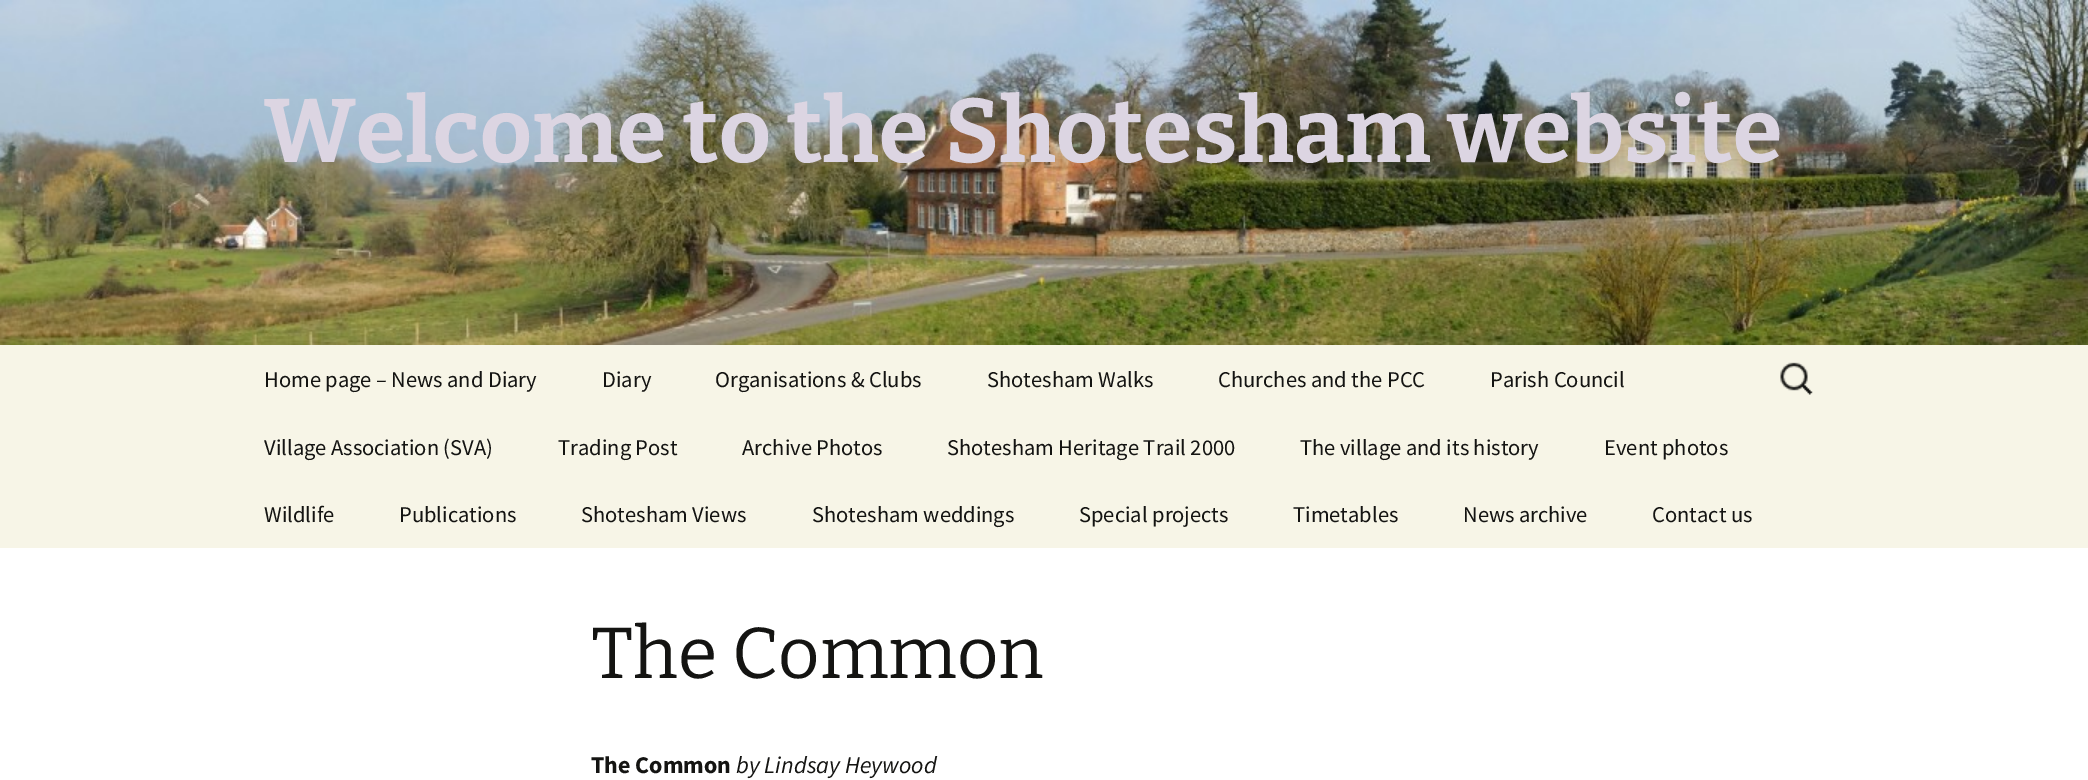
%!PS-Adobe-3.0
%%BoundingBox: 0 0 2088 780
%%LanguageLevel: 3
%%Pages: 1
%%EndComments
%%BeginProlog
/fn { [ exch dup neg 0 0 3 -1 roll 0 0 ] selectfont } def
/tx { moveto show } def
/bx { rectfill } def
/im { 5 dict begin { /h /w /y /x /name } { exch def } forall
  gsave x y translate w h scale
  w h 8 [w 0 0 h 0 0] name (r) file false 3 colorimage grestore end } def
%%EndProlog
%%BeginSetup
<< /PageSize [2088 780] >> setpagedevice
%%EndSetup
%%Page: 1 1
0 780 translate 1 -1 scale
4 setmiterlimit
1 setgray
0 0 2088 780 bx
(image0.raw) 0 0 2088 345 im
/Bitter-Bold 90 fn
0.863 0.835 0.886 setrgbcolor
(Welcome to the Shotesham website) 264 162 tx
0.969 0.961 0.906 setrgbcolor
0 345 2088 203 bx
/SourceSansPro-Regular 22.5 fn
0.078 0.078 0.071 setrgbcolor
(Home page – News and Diary) 264 387 tx
(Diary) 602 387 tx
(Organisations & Clubs) 715 387 tx
(Shotesham Walks) 987 387 tx
(Churches and the PCC) 1218 387 tx
(Parish Council) 1490 387 tx
(Village Association \(SVA\)) 264 455 tx
(Trading Post) 558 455 tx
(Archive Photos) 742 455 tx
(Shotesham Heritage Trail 2000) 947 455 tx
(The village and its history) 1300 455 tx
(Event photos) 1604 455 tx
(Wildlife) 264 522 tx
(Publications) 399 522 tx
(Shotesham Views) 581 522 tx
(Shotesham weddings) 812 522 tx
(Special projects) 1079 522 tx
(Timetables) 1293 522 tx
(News archive) 1463 522 tx
(Contact us) 1652 522 tx
(image1.raw) 1780 362 33 33 im
/Bitter-Regular 72 fn
(The Common) 591 678 tx
/SourceSansPro-Bold 24 fn
(The Common) 591 773 tx
/SourceSansPro-Italic 24 fn
(by Lindsay Heywood) 736 773 tx
showpage
%%EOF
